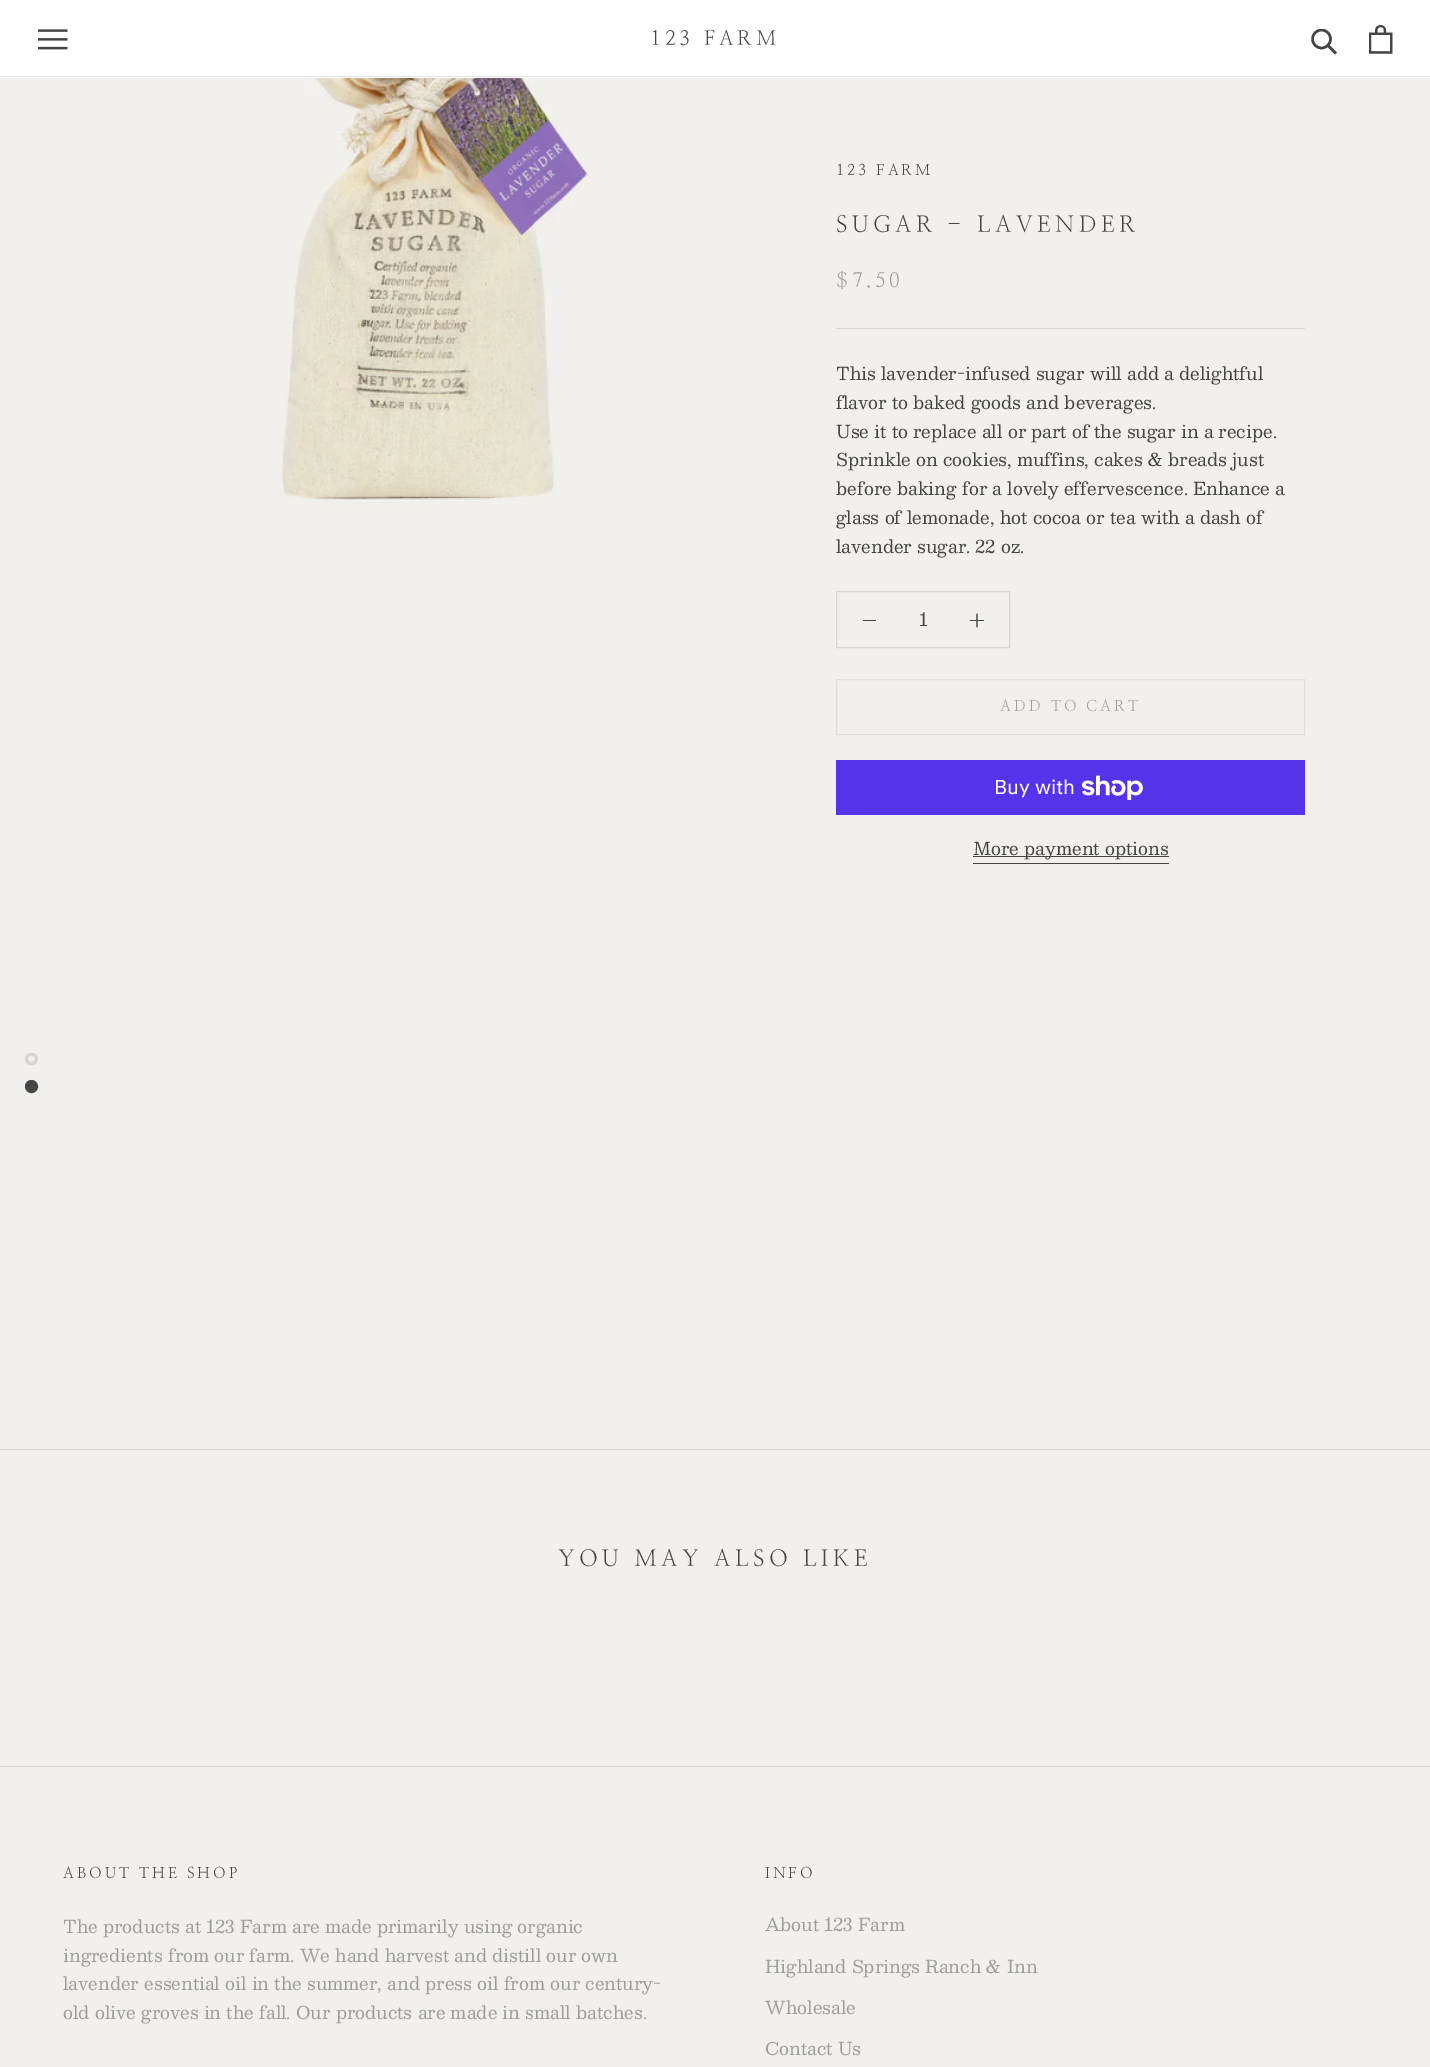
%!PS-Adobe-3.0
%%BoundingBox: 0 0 1430 2067
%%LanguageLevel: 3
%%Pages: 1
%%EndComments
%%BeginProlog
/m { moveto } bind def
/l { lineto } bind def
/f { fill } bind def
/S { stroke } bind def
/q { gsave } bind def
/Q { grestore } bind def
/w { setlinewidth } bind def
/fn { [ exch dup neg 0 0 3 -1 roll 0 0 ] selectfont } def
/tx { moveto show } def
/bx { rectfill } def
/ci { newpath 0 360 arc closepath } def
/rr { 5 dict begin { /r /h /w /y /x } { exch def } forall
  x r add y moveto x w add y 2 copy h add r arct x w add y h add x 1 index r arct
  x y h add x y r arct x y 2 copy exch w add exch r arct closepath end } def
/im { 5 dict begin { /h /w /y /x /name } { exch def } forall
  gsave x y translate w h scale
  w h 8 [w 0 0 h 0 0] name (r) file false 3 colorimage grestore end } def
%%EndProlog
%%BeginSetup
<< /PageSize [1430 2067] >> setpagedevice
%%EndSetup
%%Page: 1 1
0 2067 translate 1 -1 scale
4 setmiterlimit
0.949 0.941 0.925 setrgbcolor
0 0 1430 2067 bx
1 setgray
0 0 1430 78 bx
0.89 setgray
0 76 1430 1 bx
(image0.raw) 38 29 30 21 im
/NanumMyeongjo-Regular 20 fn
0.271 setgray
650 45 m 4 0 (123 FARM) ashow
2.5 w
2 setlinecap
1335 52.5 m 1328 45.5 l S
q
1311 29 27 26 rectclip
0 setlinecap
1321.5 39 9 ci S
Q
(image1.raw) 1369 25 24 29 im
(image2.raw) 281 78 313 427 im
0.847 0.839 0.827 setrgbcolor
3 w
0 setlinecap
26.5 1054.5 10 9 4.5 rr S
0.271 setgray
31.5 1086.5 5 ci q f Q
S
/NanumMyeongjo-Regular 15 fn
836 175 m 3 0 (123 FARM) ashow
/NanumMyeongjo-Regular 22.5 fn
836 232 m 4.5 0 (SUGAR - LAVENDER) ashow
/NanumMyeongjo-Regular 20 fn
0.616 setgray
836 287 m 3.5 0 ($7.50) ashow
0.847 0.839 0.827 setrgbcolor
836 328 469 1 bx
/Besley-Regular 17.5 fn
0.271 setgray
(This lavender-infused sugar will add a delightful) 836 380 tx
(flavor to baked goods and beverages.) 836 409 tx
(Use it to replace all or part of the sugar in a recipe.) 836 438 tx
(Sprinkle on cookies, muffins, cakes & breads just) 836 466 tx
(before baking for a lovely effervescence. Enhance a) 836 495 tx
(glass of lemonade, hot cocoa or tea with a dash of) 836 524 tx
(lavender sugar. 22 oz.) 836 553 tx
0.847 0.839 0.827 setrgbcolor
1 w
836.5 591.5 173 56 rectstroke
0.271 setgray
863 620 13 1 bx
(1) 919 626 tx
1.3 w
2 setlinecap
977 614.5 m 977 626.5 l S
970 620 14 1 bx
0.882 0.875 0.863 setrgbcolor
1 w
0 setlinecap
836.5 679.5 468 55 rectstroke
/NanumMyeongjo-Regular 15 fn
0.616 setgray
1000 711 m 3 0 (ADD TO CART) ashow
0.329 0.2 0.922 setrgbcolor
836 760 469 55 bx
/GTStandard-Regular 20 fn
1 setgray
(Buy with) 994 794 tx
(image3.raw) 1081 775 62 25 im
0.271 setgray
973 856 196 1 bx
/Besley-Regular 17.5 fn
(More payment options) 973 855 tx
973 863 196 1 bx
0.847 0.839 0.827 setrgbcolor
0 1449 1430 1 bx
/NanumMyeongjo-Regular 22.5 fn
0.271 setgray
558 1566 m 4.5 0 (YOU MAY ALSO LIKE) ashow
0.847 0.839 0.827 setrgbcolor
0 1766 1430 1 bx
/NanumMyeongjo-Regular 15 fn
0.271 setgray
63 1878 m 3 0 (ABOUT THE SHOP) ashow
/Besley-Regular 17.5 fn
0.616 setgray
(The products at 123 Farm are made primarily using organic) 63 1933 tx
(ingredients from our farm. We hand harvest and distill our own) 63 1962 tx
(lavender essential oil in the summer, and press oil from our century-) 63 1990 tx
(old olive groves in the fall. Our products are made in small batches.) 63 2019 tx
/NanumMyeongjo-Regular 15 fn
0.271 setgray
765 1878 m 3 0 (INFO) ashow
/Besley-Regular 17.5 fn
0.616 setgray
(About 123 Farm) 765 1931 tx
(Highland Springs Ranch & Inn) 765 1973 tx
(Wholesale) 765 2014 tx
(Contact Us) 765 2055 tx
showpage
%%EOF
